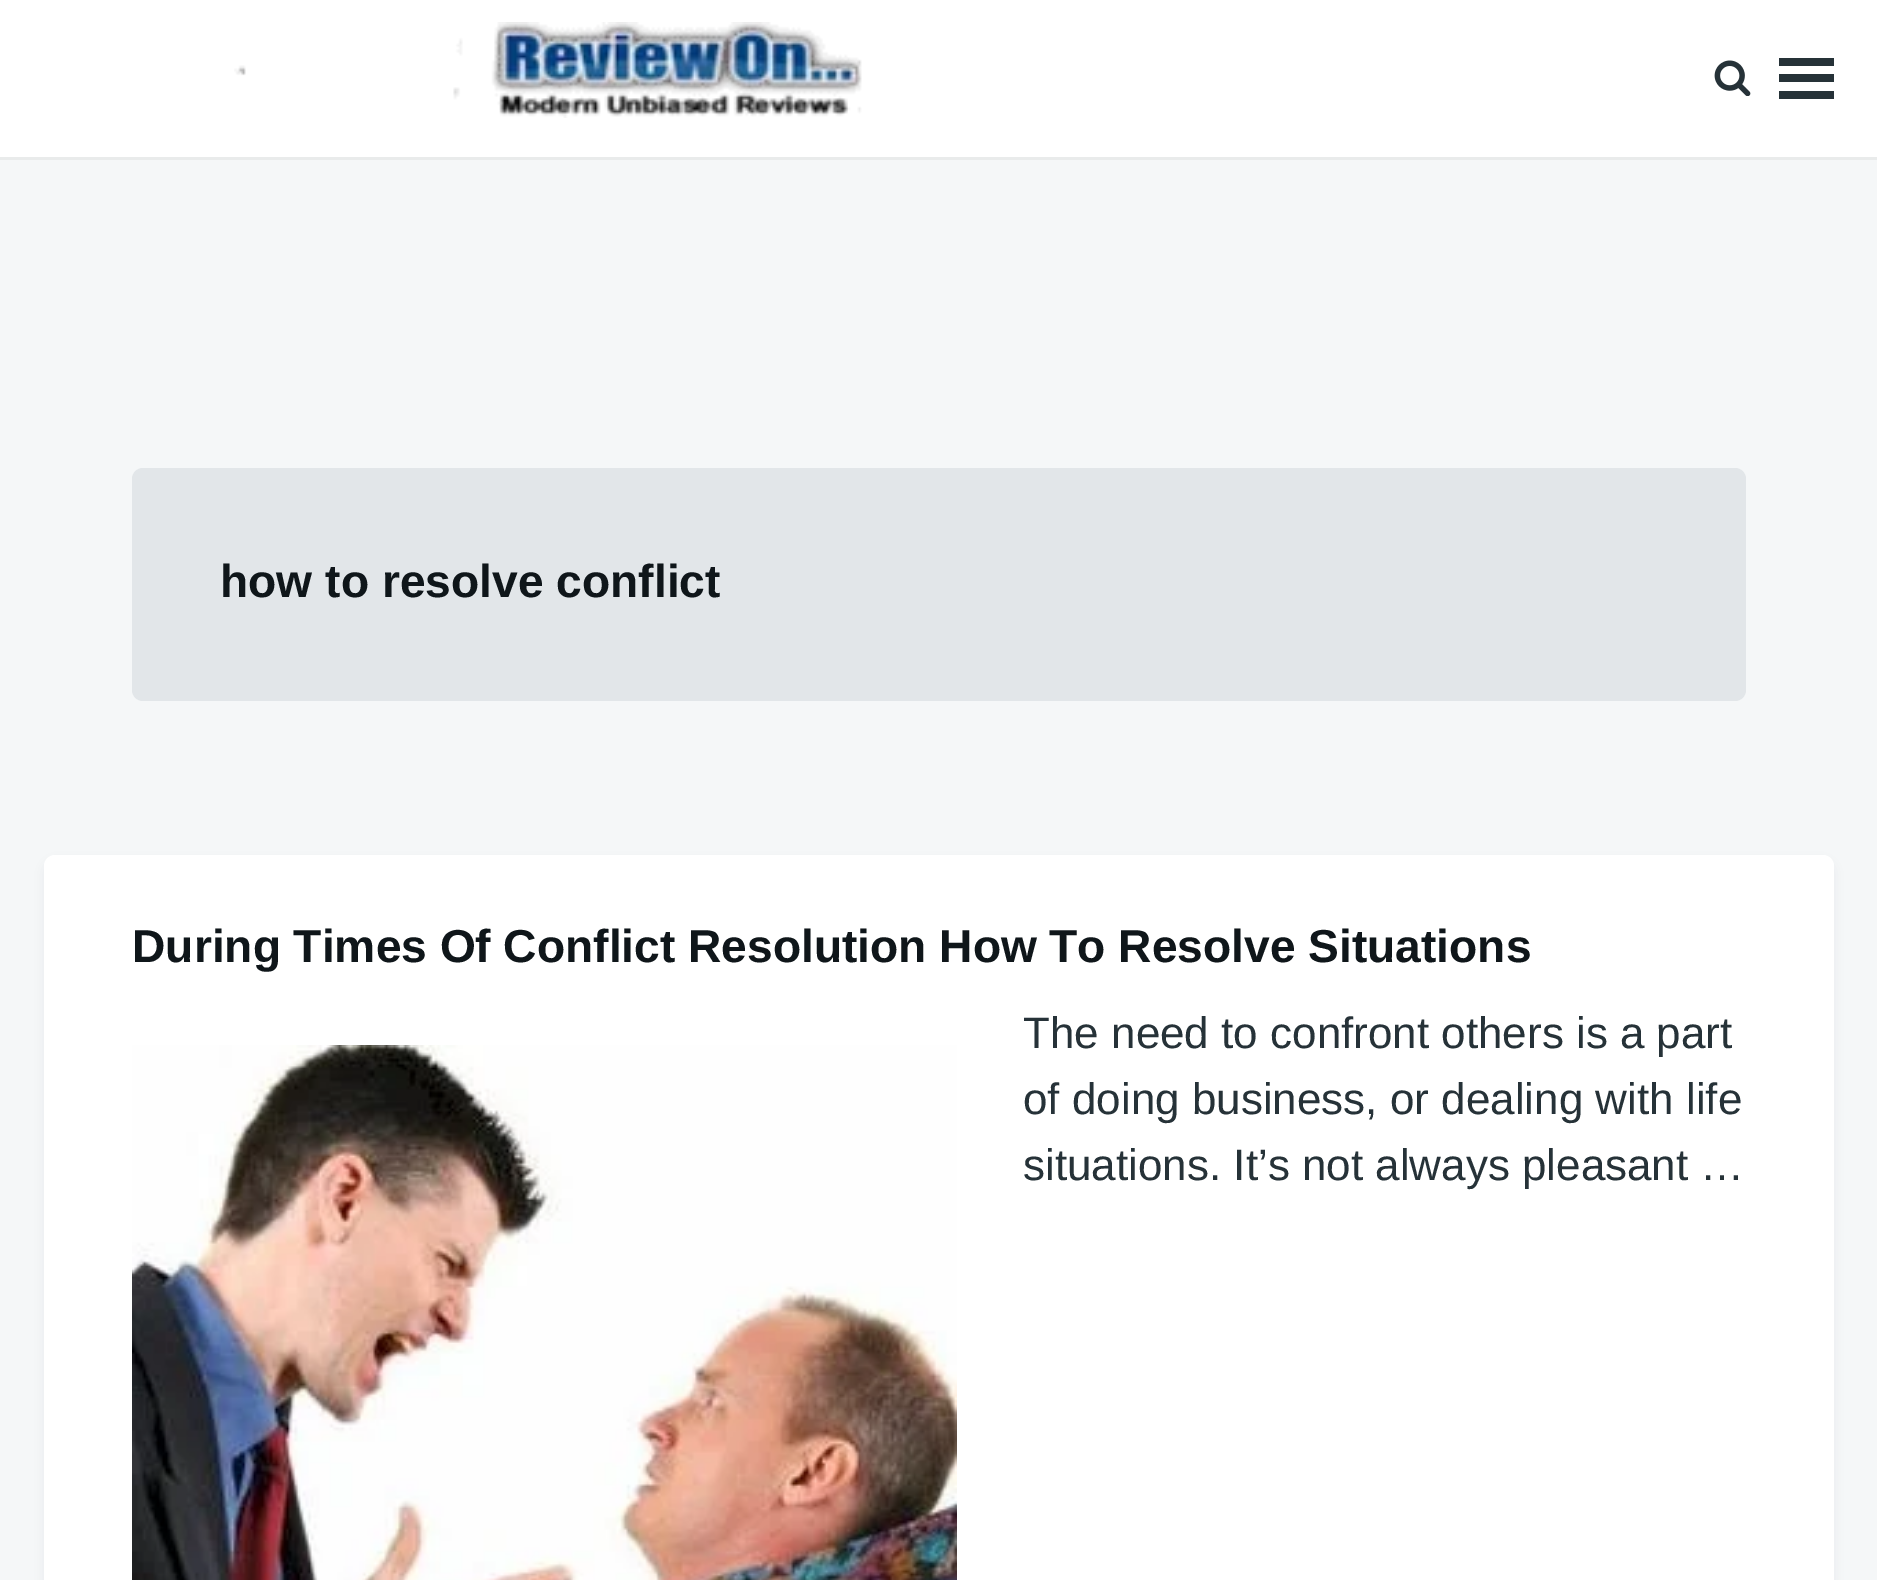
%!PS-Adobe-3.0
%%BoundingBox: 0 0 1877 1580
%%LanguageLevel: 3
%%Pages: 1
%%EndComments
%%BeginProlog
/m { moveto } bind def
/f { fill } bind def
/fn { [ exch dup neg 0 0 3 -1 roll 0 0 ] selectfont } def
/tx { moveto show } def
/bx { rectfill } def
/al { dup .setfillconstantalpha .setstrokeconstantalpha } def
/rr { 5 dict begin { /r /h /w /y /x } { exch def } forall
  x r add y moveto x w add y 2 copy h add r arct x w add y h add x 1 index r arct
  x y h add x y r arct x y 2 copy exch w add exch r arct closepath end } def
/sh { 12 dict begin { /a /b /q /h /w /y /x } { exch def } forall gsave /was 0 def
  9 -2 -9 { dup b mul 4 div /e exch def 1 sub .425 mul 2.718 exch exp 1 add a .99 .min exch div /now exch def
    1 1 now sub 1 was sub div sub al /was now def
    w h .min e 2 mul add 0 gt { x e sub y e sub w e 2 mul add h e 2 mul add
      q e add b .6 mul add w h .min 2 div e add .min 0 .max rr fill } if } for grestore end } def
/im { 5 dict begin { /h /w /y /x /name } { exch def } forall
  gsave x y translate w h scale
  w h 8 [w 0 0 h 0 0] name (r) file false 3 colorimage grestore end } def
%%EndProlog
%%BeginSetup
<< /PageSize [1877 1580] /PageUsesTransparency true >> setpagedevice
%%EndSetup
%%Page: 1 1
0 .pushpdf14devicefilter
0 1580 translate 1 -1 scale
4 setmiterlimit
0.961 0.969 0.973 setrgbcolor
0 0 1877 1580 bx
1 setgray
0 0 1877 157 bx
0.914 0.922 0.922 setrgbcolor
0 157 1877 3 bx
(image0.raw) 234 22 628 96 im
(image1.raw) 1714 60 37 36 im
0.149 0.196 0.22 setrgbcolor
1779 58 55 8 bx
1779 74 55 8 bx
1779 91 55 8 bx
0.886 0.902 0.914 setrgbcolor
132 468 1614 233 11 rr f
/LiberationSans-Bold 46.2 fn
0.059 0.086 0.102 setrgbcolor
(how to resolve conflict) 220 597 tx
0.149 0.196 0.22 setrgbcolor
44 861 1790 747 11 5.5 0.05 sh
1 setgray
44 855 1790 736 11 rr f
0.059 0.086 0.102 setrgbcolor
132 962 m -0.25 0 32 (During Times Of Conflict Resolution How To Resolve Situations) widthshow
/LiberationSans-Regular 44 fn
0.149 0.196 0.22 setrgbcolor
(The need to confront others is a part) 1023 1048 tx
(image2.raw) 132 1045 825 535 im
(of doing business, or dealing with life) 1023 1114 tx
(situations. It’s not always pleasant …) 1023 1180 tx
.poppdf14devicefilter showpage
%%EOF
